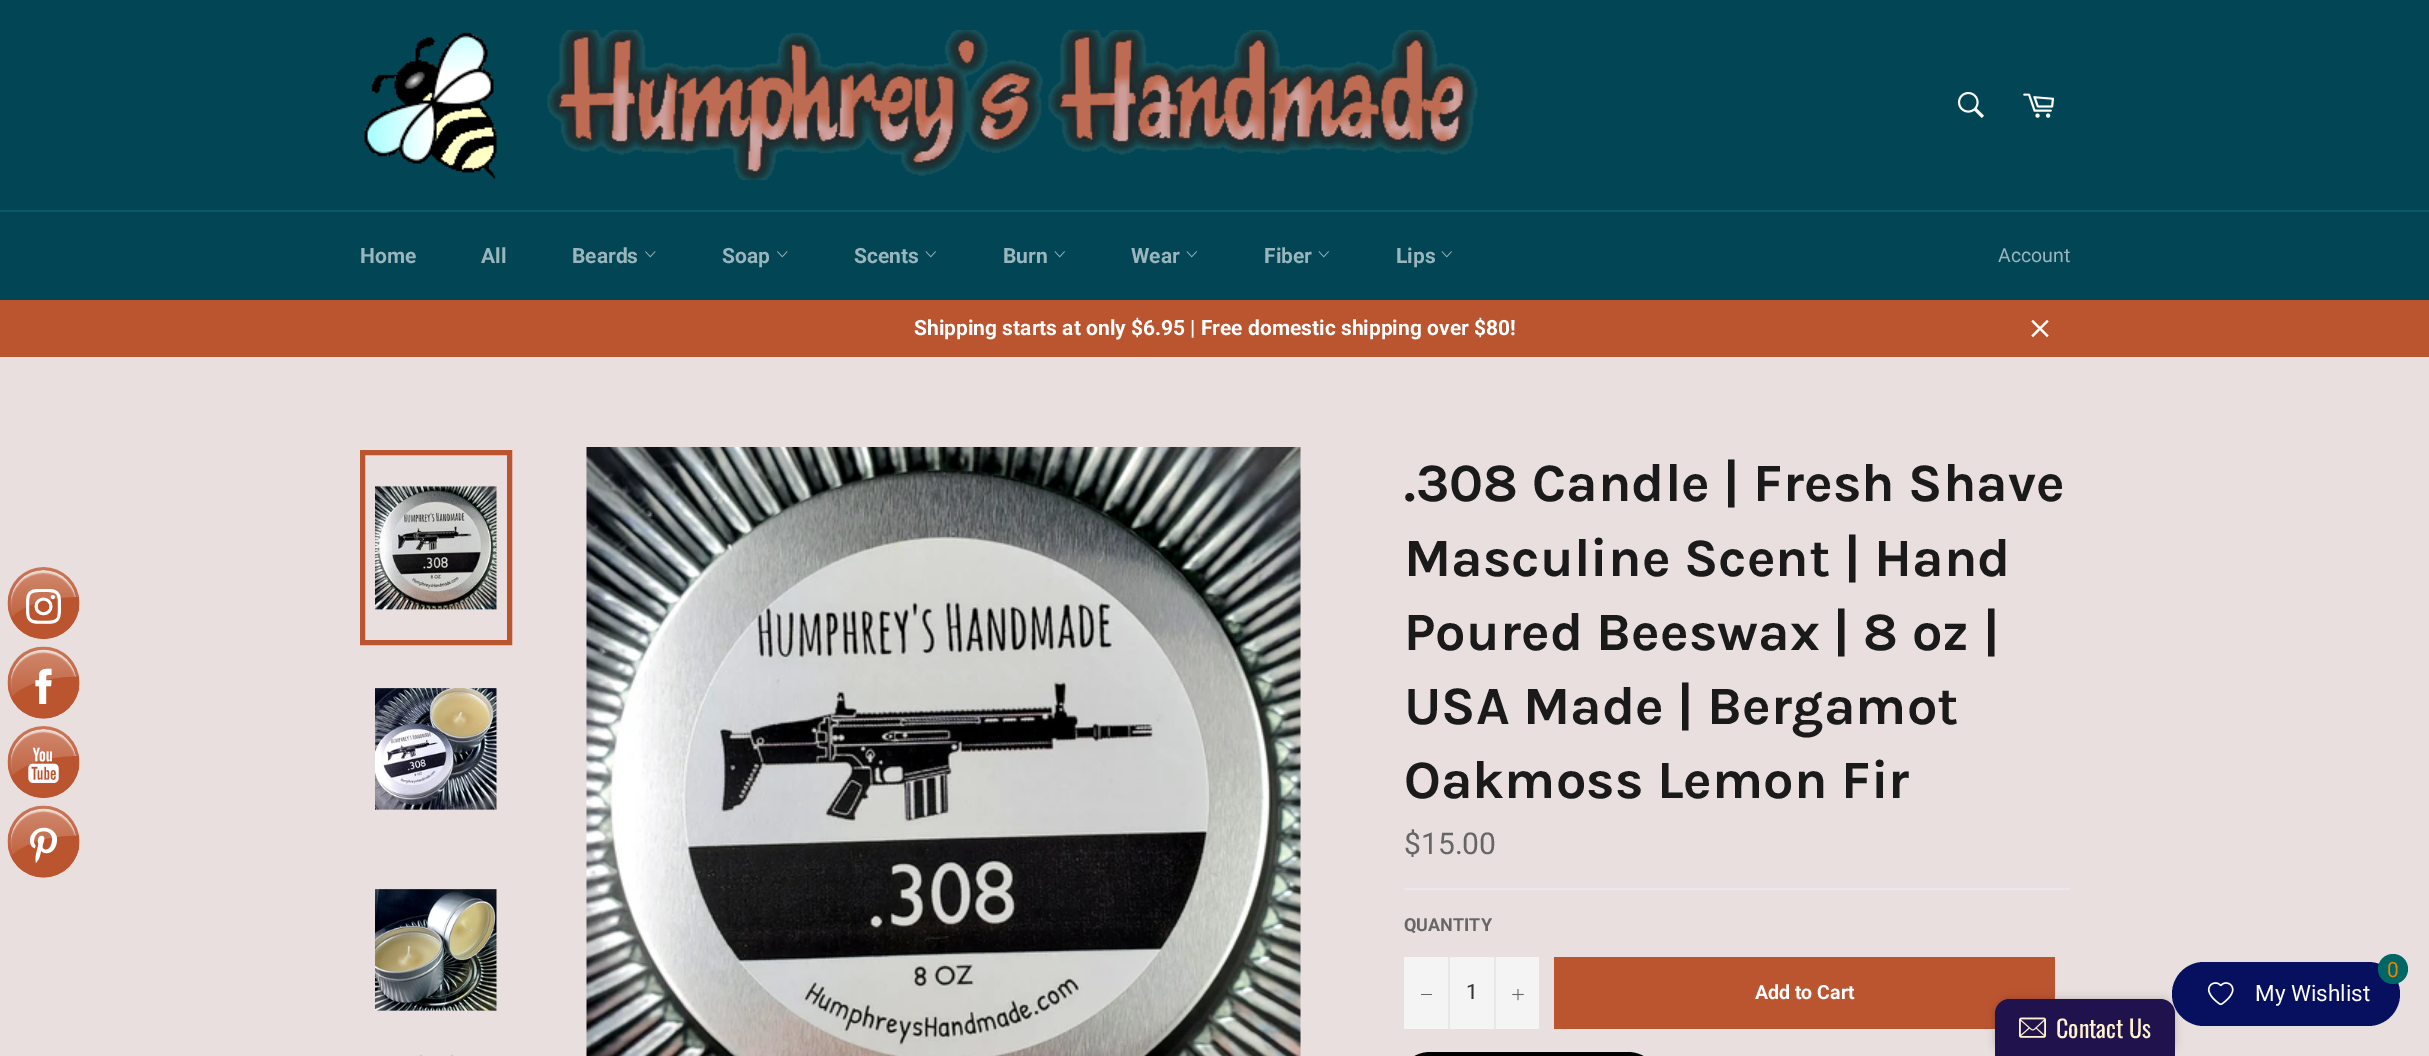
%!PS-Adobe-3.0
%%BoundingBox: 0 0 2429 1056
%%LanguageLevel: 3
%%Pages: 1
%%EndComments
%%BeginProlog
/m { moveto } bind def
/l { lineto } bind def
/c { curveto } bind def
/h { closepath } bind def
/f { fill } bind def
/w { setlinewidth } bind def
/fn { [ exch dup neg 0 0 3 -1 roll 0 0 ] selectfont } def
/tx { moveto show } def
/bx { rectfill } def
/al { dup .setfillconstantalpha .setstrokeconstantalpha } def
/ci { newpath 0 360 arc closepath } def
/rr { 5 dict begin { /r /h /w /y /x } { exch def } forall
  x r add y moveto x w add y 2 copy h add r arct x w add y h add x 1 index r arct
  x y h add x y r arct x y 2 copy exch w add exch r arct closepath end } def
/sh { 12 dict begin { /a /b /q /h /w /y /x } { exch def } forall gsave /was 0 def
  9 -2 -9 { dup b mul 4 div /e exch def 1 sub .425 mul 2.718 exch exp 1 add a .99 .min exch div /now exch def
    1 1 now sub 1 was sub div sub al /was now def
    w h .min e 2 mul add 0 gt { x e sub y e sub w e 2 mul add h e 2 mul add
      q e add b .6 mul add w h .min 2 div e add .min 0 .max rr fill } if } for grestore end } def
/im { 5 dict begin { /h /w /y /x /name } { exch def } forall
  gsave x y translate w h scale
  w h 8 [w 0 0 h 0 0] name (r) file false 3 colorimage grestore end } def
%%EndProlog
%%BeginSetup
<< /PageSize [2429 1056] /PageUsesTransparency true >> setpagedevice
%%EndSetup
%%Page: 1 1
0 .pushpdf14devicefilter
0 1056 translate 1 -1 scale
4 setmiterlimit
0.008 0.275 0.337 setrgbcolor
0 0 2429 1056 bx
(image0.raw) 364 30 1114 150 im
(image1.raw) 1957 91 27 27 im
(image2.raw) 2023 93 31 25 im
0.012 0.353 0.435 setrgbcolor
0 210 2429 2 bx
/Roboto-Bold 21 fn
0.604 0.71 0.733 setrgbcolor
(Home) 360 263 tx
(All) 481 263 tx
(Beards) 572 263 tx
(image3.raw) 645 251 11 7 im
(Soap) 722 263 tx
(image3.raw) 777 251 11 7 im
(Scents) 854 263 tx
(image4.raw) 925 251 11 7 im
(Burn) 1003 263 tx
(image4.raw) 1054 251 11 7 im
(Wear) 1131 263 tx
(image4.raw) 1186 251 11 7 im
(Fiber) 1264 263 tx
(image4.raw) 1318 251 11 7 im
(Lips) 1396 263 tx
(image4.raw) 1441 251 11 7 im
/Roboto-Regular 19.5 fn
(Account) 1998 262 tx
0.733 0.333 0.188 setrgbcolor
0 300 2429 57 bx
/Roboto-Bold 21 fn
1 setgray
(Shipping starts at only $6.95 | Free domestic shipping over $80!) 914 335 tx
(image5.raw) 2031 319 18 19 im
0.914 0.875 0.875 setrgbcolor
0 357 2429 699 bx
(image6.raw) 7 567 73 311 im
(image7.raw) 375 486 122 124 im
0.733 0.333 0.188 setrgbcolor
5 w
362.5 452.5 147 190 rectstroke
(image8.raw) 375 688 122 122 im
(image9.raw) 375 889 122 122 im
0.812 0.78 0.78 setrgbcolor
452 1054.5 m 454 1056.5 l 436.5 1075.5 l 419 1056.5 l 421 1054.5 l 436.5 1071 l h f
(image10.raw) 586 447 715 609 im
/Karla-Bold 54 fn
0.102 setgray
(.308 Candle | Fresh Shave) 1404 501 tx
(Masculine Scent | Hand) 1404 576 tx
(Poured Beeswax | 8 oz |) 1404 650 tx
(USA Made | Bergamot) 1404 724 tx
(Oakmoss Lemon Fir) 1404 798 tx
/Roboto-Regular 30 fn
0.4 setgray
($15.00) 1404 854 tx
0.902 0.914 0.957 setrgbcolor
1404 888 666 2 bx
/Roboto-Bold 18 fn
0.4 setgray
(QUANTITY) 1404 931 tx
0.957 setgray
1404 957 135 72 bx
0.906 setgray
1448 957 2 72 bx
0.4 setgray
1421 994 11 1 bx
/Roboto-Regular 21 fn
0.2 setgray
(1) 1466 999 tx
0.906 setgray
1494 957 2 72 bx
(image11.raw) 1512 989 12 12 im
0.733 0.333 0.188 setrgbcolor
1554 957 501 72 bx
/Roboto-Bold 19.5 fn
1 setgray
(Add to Cart) 1755 999 tx
0 setgray
1397 1052 264 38 33.5 rr f
1995 999 180 57 15 4 0.2 sh
0.125 0.071 0.302 setrgbcolor
2010 999 m 2160 999 l 2168.5 999 2175 1005.5 2175 1014 c 2175 1056 l 1995 1056 l 1995 1014 l 1995 1005.5 2001.5 999 2010 999 c h f
0.024 0.063 0.369 setrgbcolor
2172 962 228 64 32 rr f
0 0.4 0.4 setrgbcolor
2393 969 15 ci f
/Roboto-Regular 21 fn
0.922 0.522 0 setrgbcolor
(0) 2387 977 tx
(image12.raw) 2207 982 27 23 im
/Roboto-Regular 22.5 fn
1 setgray
(My Wishlist) 2255 1001 tx
(image13.raw) 2019 1017 27 21 im
/Oswald-Regular 24 fn
1 0.949 0.8 setrgbcolor
(Contact Us) 2056 1038 tx
.poppdf14devicefilter showpage
%%EOF
